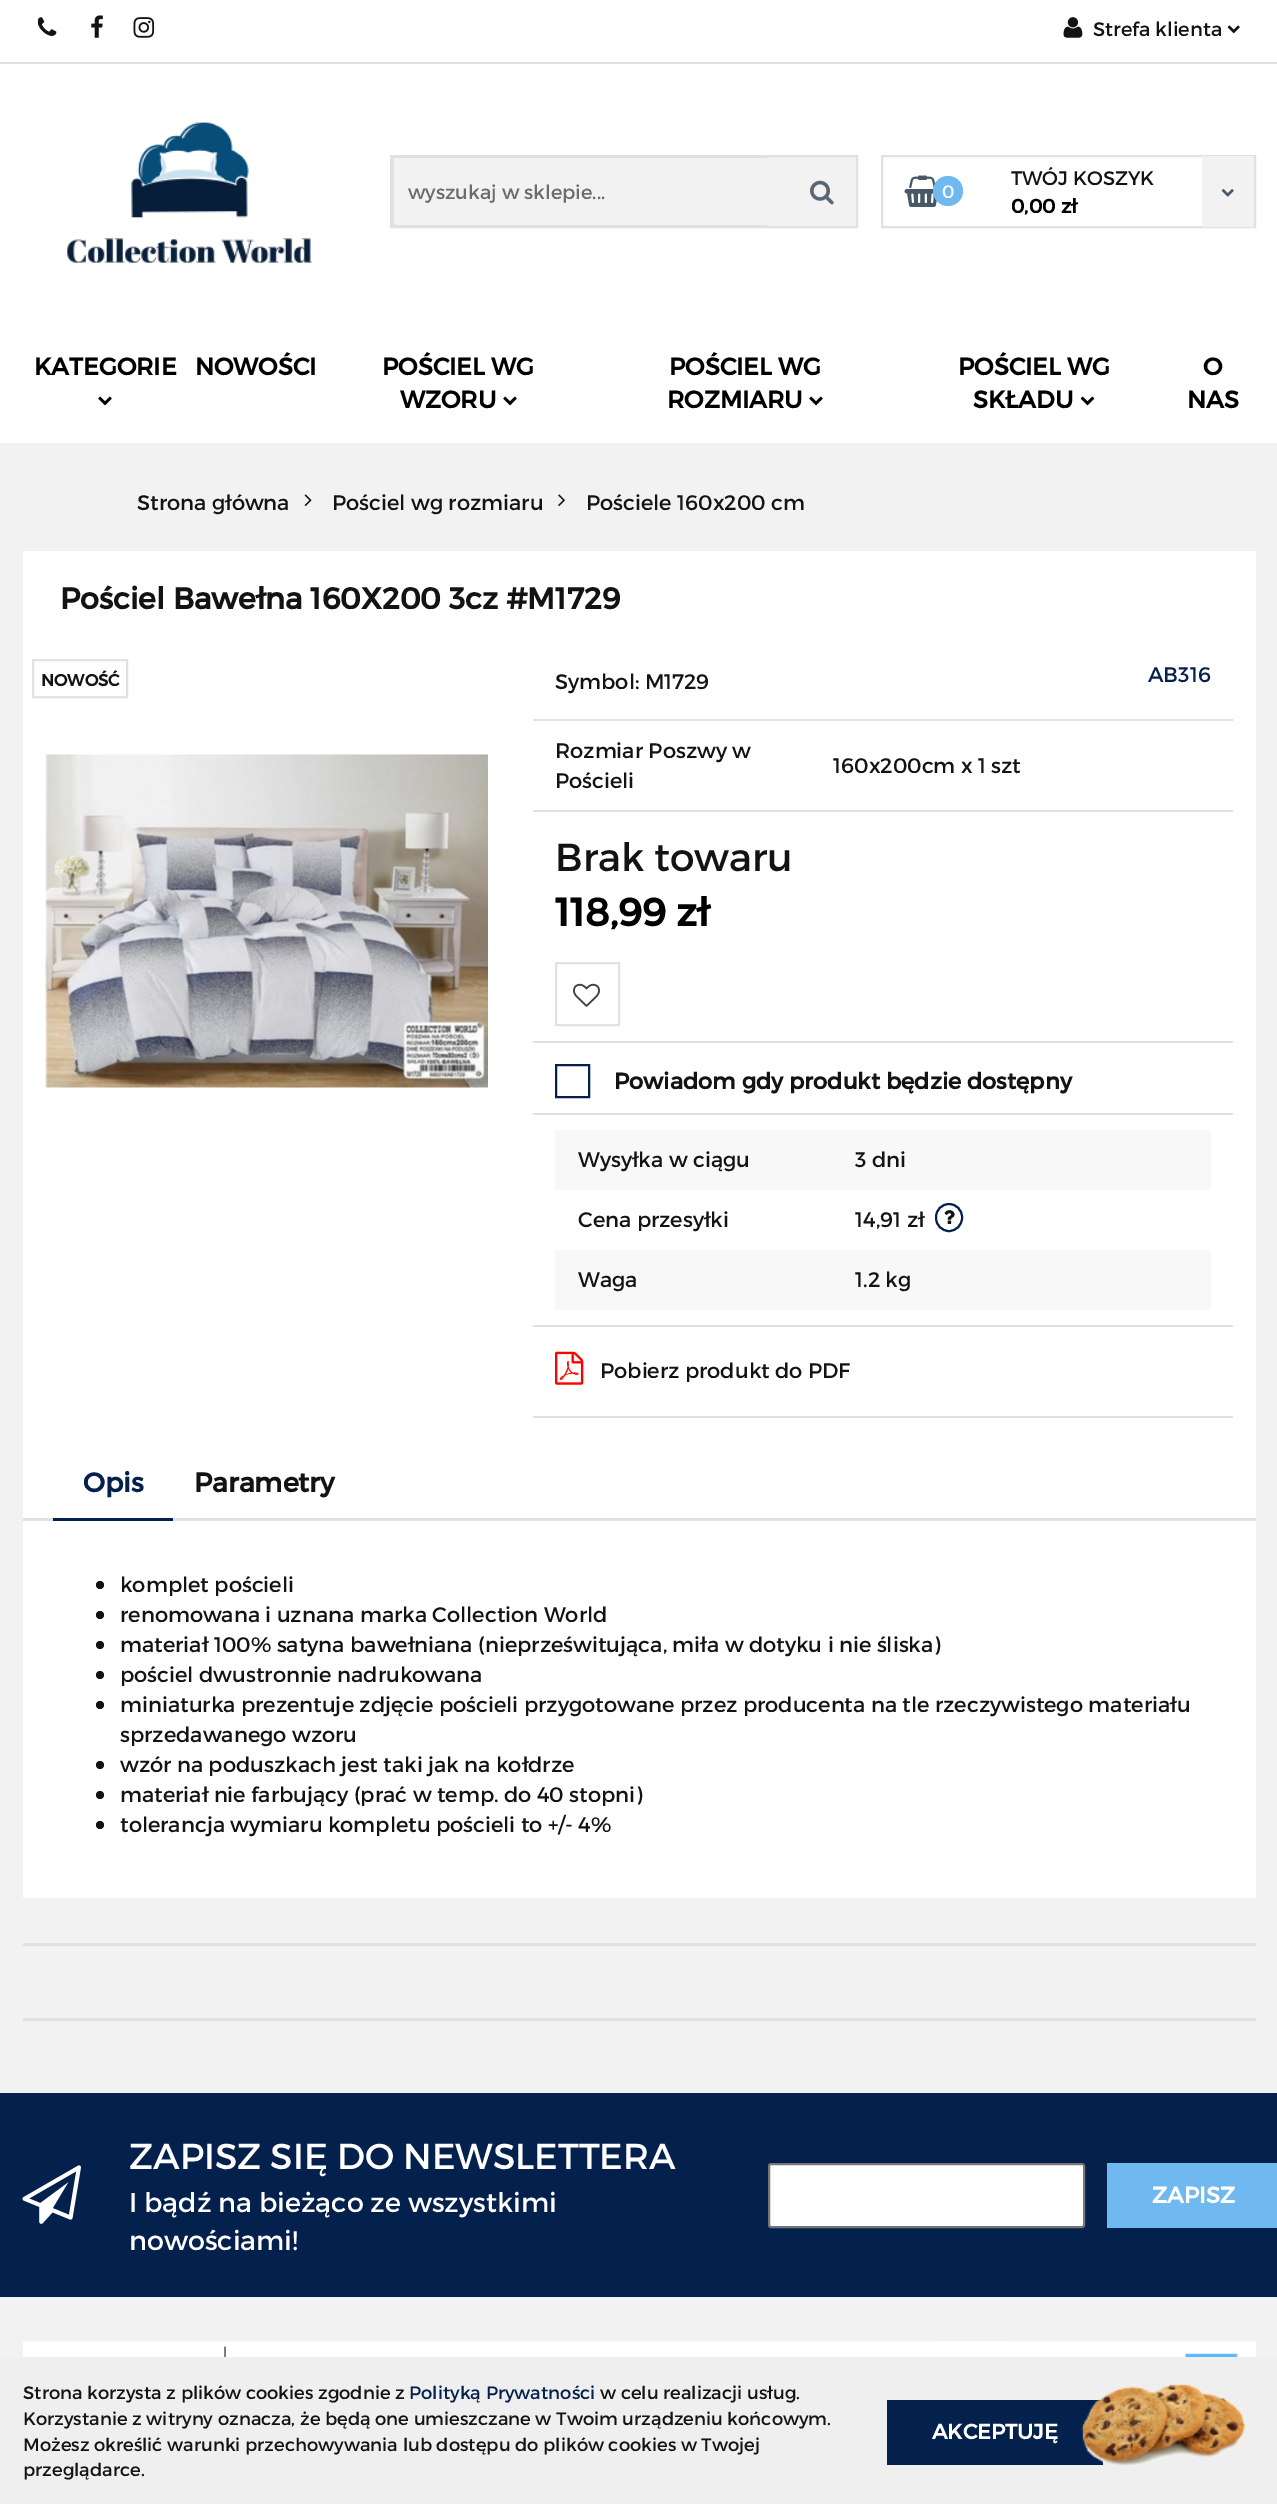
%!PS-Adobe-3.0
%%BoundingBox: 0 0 1277 2504
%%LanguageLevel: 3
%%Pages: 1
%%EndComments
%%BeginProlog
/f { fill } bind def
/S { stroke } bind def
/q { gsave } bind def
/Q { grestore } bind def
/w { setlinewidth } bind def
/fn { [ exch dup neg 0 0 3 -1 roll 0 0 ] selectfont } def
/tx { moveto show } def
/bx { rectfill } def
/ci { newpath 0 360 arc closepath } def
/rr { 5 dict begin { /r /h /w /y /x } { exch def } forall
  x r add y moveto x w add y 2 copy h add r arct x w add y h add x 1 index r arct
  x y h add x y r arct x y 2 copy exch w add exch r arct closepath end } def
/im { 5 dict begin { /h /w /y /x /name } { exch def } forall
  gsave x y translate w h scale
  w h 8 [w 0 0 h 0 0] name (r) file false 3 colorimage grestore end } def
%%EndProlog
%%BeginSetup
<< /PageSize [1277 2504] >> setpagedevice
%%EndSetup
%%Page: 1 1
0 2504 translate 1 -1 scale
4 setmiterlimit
0.949 setgray
0 0 1277 2504 bx
1 setgray
0 0 1277 443 bx
(image0.raw) 38 17 19 19 im
(image1.raw) 91 15 12 23 im
(image2.raw) 133 17 22 21 im
(image3.raw) 1063 17 20 21 im
/Montserrat-Regular 19.5 fn
0.075 setgray
(Strefa klienta) 1093 36 tx
(image4.raw) 1227 25 13 9 im
0.882 setgray
0 62 1277 2 bx
(image5.raw) 67 122 245 141 im
0.949 setgray
767 157 89 69 bx
0.882 setgray
2 w
391 156 466 71 rectstroke
0.949 setgray
394 158 373 67 bx
0.882 setgray
392 157 375 1 bx
392 225 375 1 bx
392 156 2 71 bx
0.424 setgray
(wyszukaj w sklepie...) 408 199 tx
(image6.raw) 810 180 24 25 im
0.882 setgray
882 156 373 71 rectstroke
(image7.raw) 904 175 33 32 im
0.435 0.722 0.941 setrgbcolor
948 191 15 ci f
/Montserrat-Regular 18 fn
1 setgray
(0) 942 198 tx
/Montserrat-Regular 19.5 fn
0.075 setgray
(TWÓJ KOSZYK) 1011 185 tx
/Montserrat-Bold 19.5 fn
0 setgray
(0,00 zł) 1011 213 tx
0.949 setgray
1202 156 52 71 bx
(image8.raw) 1221 189 13 8 im
/Montserrat-Bold 24 fn
0 setgray
(KATEGORIE) 34 375 tx
(image9.raw) 98 396 14 10 im
(NOWOŚCI) 195 375 tx
(POŚCIEL WG) 382 375 tx
(WZORU) 400 408 tx
(image9.raw) 503 396 14 10 im
(POŚCIEL WG) 669 375 tx
(ROZMIARU) 667 408 tx
(image9.raw) 809 396 14 10 im
(POŚCIEL WG) 958 375 tx
(SKŁADU) 973 408 tx
(image10.raw) 1080 396 15 10 im
(O) 1203 375 tx
(NAS) 1187 408 tx
/Montserrat-Regular 21 fn
0.075 setgray
(Strona główna) 137 510 tx
(image11.raw) 304 494 8 12 im
(Pościel wg rozmiaru) 332 510 tx
(image12.raw) 558 494 7 12 im
(Pościele 160x200 cm) 586 510 tx
1 setgray
23 551 1233 1347 bx
/Montserrat-Bold 30 fn
0.075 setgray
(Pościel Bawełna 160X200 3cz #M1729) 60 609 tx
0.882 setgray
33 660 94 37 rectstroke
/Montserrat-Bold 16.5 fn
0.075 setgray
(NOWOŚĆ) 41 686 tx
(image13.raw) 45 754 443 334 im
0.882 setgray
533 719 700 2 bx
/Montserrat-Regular 21 fn
0.075 setgray
(Symbol: M1729) 555 689 tx
0.016 0.125 0.302 setrgbcolor
(AB316) 1148 682 tx
0.882 setgray
533 810 700 2 bx
0.075 setgray
(Rozmiar Poszwy w) 555 758 tx
(Pościeli) 555 788 tx
(160x200cm x 1 szt) 833 773 tx
0.882 setgray
533 1041 700 2 bx
/Montserrat-Regular 39 fn
0.075 setgray
(Brak towaru) 555 871 tx
/Montserrat-Bold 39 fn
0 setgray
(118,99 zł) 555 926 tx
0.882 setgray
556 963 63 62 rectstroke
(image14.raw) 573 983 27 24 im
533 1113 700 2 bx
0.016 0.125 0.302 setrgbcolor
556 1065 33 32 rectstroke
/Montserrat-Bold 22.5 fn
0.075 setgray
(Powiadom gdy produkt będzie dostępny) 614 1089 tx
0.882 setgray
533 1325 700 2 bx
0.973 setgray
555 1130 656 60 bx
/Montserrat-Regular 21 fn
0.075 setgray
(Wysyłka w ciągu) 578 1167 tx
(3 dni) 855 1167 tx
(Cena przesyłki) 578 1227 tx
(14,91 zł) 855 1227 tx
0.016 0.125 0.302 setrgbcolor
936 1204 26 27 13 rr S
(image15.raw) 944 1210 11 14 im
0.973 setgray
555 1250 656 60 bx
0.075 setgray
(Waga) 578 1287 tx
(1.2 kg) 855 1287 tx
0.882 setgray
533 1416 700 2 bx
(image16.raw) 555 1351 29 34 im
0.075 setgray
(Pobierz produkt do PDF) 600 1378 tx
/Montserrat-Bold 27 fn
0.016 0.125 0.302 setrgbcolor
(Opis) 83 1492 tx
0.882 setgray
23 1518 1233 3 bx
0.016 0.125 0.302 setrgbcolor
53 1518 120 3 bx
0.075 setgray
(Parametry) 194 1492 tx
100 1585 4 ci f
/Montserrat-Regular 21 fn
(komplet pościeli) 120 1592 tx
100 1615 4 ci f
(renomowana i uznana marka Collection World) 120 1622 tx
100 1645 4 ci f
(materiał 100% satyna bawełniana \(nieprześwitująca, miła w dotyku i nie śliska\)) 120 1652 tx
100 1675 4 ci f
(pościel dwustronnie nadrukowana) 120 1682 tx
100 1705 4 ci f
(miniaturka prezentuje zdjęcie pościeli przygotowane przez producenta na tle rzeczywistego materiału) 120 1712 tx
(sprzedawanego wzoru) 120 1742 tx
100 1765 4 ci f
(wzór na poduszkach jest taki jak na kołdrze) 120 1772 tx
100 1795 4 ci f
(materiał nie farbujący \(prać w temp. do 40 stopni\)) 120 1802 tx
100 1825 4 ci f
(tolerancja wymiaru kompletu pościeli to +/- 4%) 120 1832 tx
0.882 setgray
23 1943 1233 3 bx
23 2018 1233 3 bx
0.016 0.125 0.302 setrgbcolor
0 2093 1277 204 bx
(image17.raw) 22 2165 59 59 im
/Montserrat-Regular 36 fn
1 setgray
(ZAPISZ SIĘ DO NEWSLETTERA) 129 2169 tx
/Montserrat-Regular 27 fn
(I bądź na bieżąco ze wszystkimi) 129 2212 tx
(nowościami!) 129 2250 tx
769 2164 315 63 2 rr q f Q
0.463 setgray
S
0.435 0.722 0.941 setrgbcolor
1107 2163 170 65 bx
/Montserrat-Bold 22.5 fn
1 setgray
(ZAPISZ) 1152 2203 tx
(image18.raw) 23 2341 1233 16 im
0.937 setgray
0 2357 1277 147 bx
/Montserrat-Regular 18 fn
0.075 setgray
(Strona korzysta z plików cookies zgodnie z) 23 2399 tx
0.016 0.125 0.302 setrgbcolor
(Polityką Prywatności) 409 2399 tx
0.075 setgray
(w celu realizacji usług.) 600 2399 tx
(Korzystanie z witryny oznacza, że będą one umieszczane w Twoim urządzeniu końcowym.) 23 2425 tx
(Możesz określić warunki przechowywania lub dostępu do plików cookies w Twojej) 23 2451 tx
(przeglądarce.) 23 2476 tx
0.016 0.125 0.302 setrgbcolor
887 2400 216 65 bx
/Montserrat-Bold 21 fn
1 setgray
(AKCEPTUJĘ) 932 2439 tx
(image19.raw) 1081 2383 165 83 im
showpage
%%EOF
